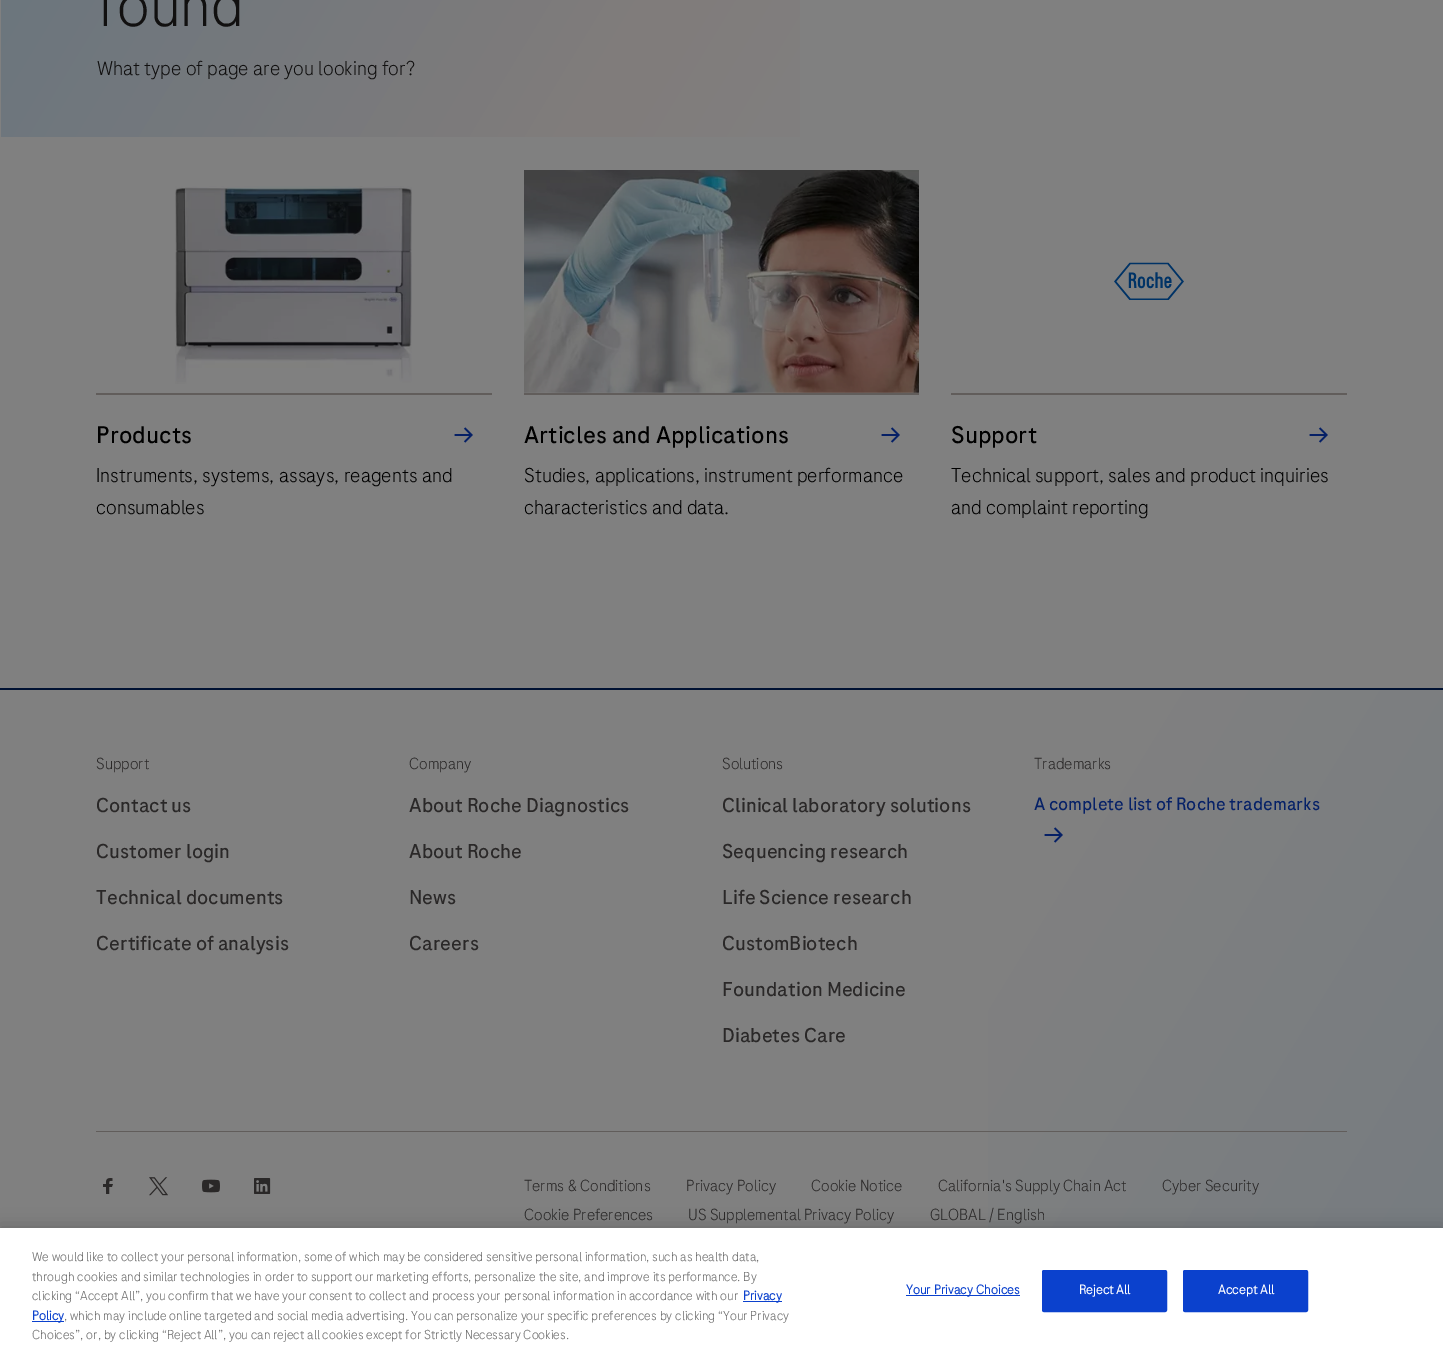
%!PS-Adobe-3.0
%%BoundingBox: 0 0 1443 1356
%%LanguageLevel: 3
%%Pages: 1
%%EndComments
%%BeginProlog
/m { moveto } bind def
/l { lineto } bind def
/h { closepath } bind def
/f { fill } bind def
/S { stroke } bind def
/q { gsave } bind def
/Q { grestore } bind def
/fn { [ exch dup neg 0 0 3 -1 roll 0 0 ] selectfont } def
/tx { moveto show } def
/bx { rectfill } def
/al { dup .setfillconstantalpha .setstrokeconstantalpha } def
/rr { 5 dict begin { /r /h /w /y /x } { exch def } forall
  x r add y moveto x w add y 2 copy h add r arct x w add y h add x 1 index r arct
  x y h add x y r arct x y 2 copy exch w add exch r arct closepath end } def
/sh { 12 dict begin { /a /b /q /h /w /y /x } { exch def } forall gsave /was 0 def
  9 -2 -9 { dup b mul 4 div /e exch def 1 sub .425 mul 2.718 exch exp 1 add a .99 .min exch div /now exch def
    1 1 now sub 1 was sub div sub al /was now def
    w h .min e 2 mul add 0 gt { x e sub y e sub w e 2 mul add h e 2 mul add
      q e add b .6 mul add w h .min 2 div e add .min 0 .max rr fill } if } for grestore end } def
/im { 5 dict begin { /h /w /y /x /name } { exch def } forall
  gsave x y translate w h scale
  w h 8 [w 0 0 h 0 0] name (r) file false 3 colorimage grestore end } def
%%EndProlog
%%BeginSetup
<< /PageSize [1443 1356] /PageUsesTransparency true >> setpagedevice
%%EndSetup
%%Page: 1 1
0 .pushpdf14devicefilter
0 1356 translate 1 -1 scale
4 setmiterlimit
0.502 setgray
0 0 1443 1356 bx
q 1 0 m 800 0 l 800 137 l 1 137 l h clip newpath
<< /ShadingType 2 /ColorSpace /DeviceRGB /Coords [-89 -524 1324 332] /Extend [true true] /Function << /FunctionType 3 /Domain [0 1] /Functions [<< /FunctionType 2 /Domain [0 1] /C0 [0.373 0.447 0.502] /C1 [0.502 0.486 0.482] /N 1 >> << /FunctionType 2 /Domain [0 1] /C0 [0.502 0.486 0.482] /C1 [0.502 0.502 0.502] /N 1 >> << /FunctionType 2 /Domain [0 1] /C0 [0.502 0.502 0.502] /C1 [0.502 0.502 0.502] /N 1 >>] /Bounds [0.54 0.71] /Encode [0 1 0 1 0 1] >> >> shfill Q
/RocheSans-Light 61 fn
0.067 0.063 0.063 setrgbcolor
(found) 97 26 tx
/RocheSans-Light 20 fn
(What type of page are you looking for?) 97 75 tx
(image0.raw) 175 186 237 198 im
0.38 0.365 0.357 setrgbcolor
96 393 396 2 bx
/RocheSans-Regular 24 fn
0 setgray
(Products) 96 443 tx
(image1.raw) 454 427 19 16 im
/RocheSans-Light 20 fn
(Instruments, systems, assays, reagents and) 96 482 tx
(consumables) 96 514 tx
(image2.raw) 524 170 395 223 im
0.38 0.365 0.357 setrgbcolor
524 393 395 2 bx
/RocheSans-Regular 24 fn
0 setgray
(Articles and Applications) 524 443 tx
(image1.raw) 881 427 19 16 im
/RocheSans-Light 20 fn
(Studies, applications, instrument performance) 524 482 tx
(characteristics and data.) 524 514 tx
(image3.raw) 1114 262 70 38 im
0.38 0.365 0.357 setrgbcolor
951 393 396 2 bx
/RocheSans-Regular 24 fn
0 setgray
(Support) 951 443 tx
(image1.raw) 1309 427 19 16 im
/RocheSans-Light 20 fn
(Technical support, sales and product inquiries) 951 482 tx
(and complaint reporting) 951 514 tx
q 988 690 m 1443 690 l 1443 1228 l 988 1228 l h clip newpath
<< /ShadingType 2 /ColorSpace /DeviceRGB /Coords [38 627 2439 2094] /Extend [true true] /Function << /FunctionType 3 /Domain [0 1] /Functions [<< /FunctionType 2 /Domain [0 1] /C0 [0.502 0.502 0.502] /C1 [0.502 0.502 0.502] /N 1 >> << /FunctionType 2 /Domain [0 1] /C0 [0.502 0.502 0.502] /C1 [0.373 0.447 0.502] /N 1 >>] /Bounds [0.35] /Encode [0 1 0 1] >> >> shfill Q
0.004 0.071 0.2 setrgbcolor
0 688 1443 2 bx
0.38 0.365 0.357 setrgbcolor
96 1131 1251 1 bx
/RocheSans-Light 16 fn
0.165 0.157 0.157 setrgbcolor
(Support) 96 769 tx
/RocheSans-Regular 20 fn
(Contact us) 96 812 tx
(Customer login) 96 858 tx
(Technical documents) 96 904 tx
(Certificate of analysis) 96 950 tx
/RocheSans-Light 16 fn
(Company) 409 769 tx
/RocheSans-Regular 20 fn
(About Roche Diagnostics) 409 812 tx
(About Roche) 409 858 tx
(News) 409 904 tx
(Careers) 409 950 tx
/RocheSans-Light 16 fn
(Solutions) 722 769 tx
/RocheSans-Regular 20 fn
(Clinical laboratory solutions) 722 812 tx
(Sequencing research) 722 858 tx
(Life Science research) 722 904 tx
(CustomBiotech) 722 950 tx
(Foundation Medicine) 722 996 tx
(Diabetes Care) 722 1042 tx
/RocheSans-Light 16 fn
(Trademarks) 1034 769 tx
/RocheSans-Regular 18 fn
0.024 0.129 0.404 setrgbcolor
(A complete list of Roche trademarks) 1034 810 tx
(image1.raw) 1044 827 19 16 im
(image4.raw) 103 1178 10 16 im
(image5.raw) 149 1177 19 19 im
(image6.raw) 202 1179 18 14 im
(image7.raw) 254 1178 17 16 im
/RocheSans-Light 16 fn
0.165 0.157 0.157 setrgbcolor
(Terms & Conditions) 524 1191 tx
(Privacy Policy) 686 1191 tx
(Cookie Notice) 811 1191 tx
(California's Supply Chain Act) 938 1191 tx
(Cyber Security) 1162 1191 tx
(Cookie Preferences) 524 1220 tx
(US Supplemental Privacy Policy) 688 1220 tx
(GLOBAL / English) 930 1220 tx
0 setgray
0 1228 1443 128 0 9 0.2 sh
1 setgray
0 1228 1443 128 bx
/RocheSans-Light 13 fn
0.412 setgray
(We would like to collect your personal information, some of which may be considered sensitive personal information, such as health data,) 32 1261 tx
(through cookies and similar technologies in order to support our marketing efforts, personalize the site, and improve its performance. By) 32 1281 tx
(clicking “Accept All”, you confirm that we have your consent to collect and process your personal information in accordance with our) 32 1300 tx
0.043 0.255 0.804 setrgbcolor
743 1301 39 1 bx
/RocheSans-Bold 13 fn
(Privacy) 743 1300 tx
32 1321 32 1 bx
(Policy) 32 1320 tx
/RocheSans-Light 13 fn
0.412 setgray
(, which may include online targeted and social media advertising. You can personalize your specific preferences by clicking “Your Privacy) 64 1320 tx
(Choices”, or, by clicking “Reject All”, you can reject all cookies except for Strictly Necessary Cookies.) 32 1339 tx
0.043 0.255 0.804 setrgbcolor
906 1295 114 1 bx
/RocheSans-Bold 13 fn
906 1294 m 0.1 0 (Your Privacy Choices) ashow
1042.5 1270.5 124 41 1.5 rr q f Q
S
1 setgray
1079 1294 m 0.1 0 (Reject All) ashow
0.043 0.255 0.804 setrgbcolor
1183.5 1270.5 124 41 1.5 rr q f Q
S
1 setgray
1218 1294 m 0.1 0 (Accept All) ashow
.poppdf14devicefilter showpage
%%EOF
